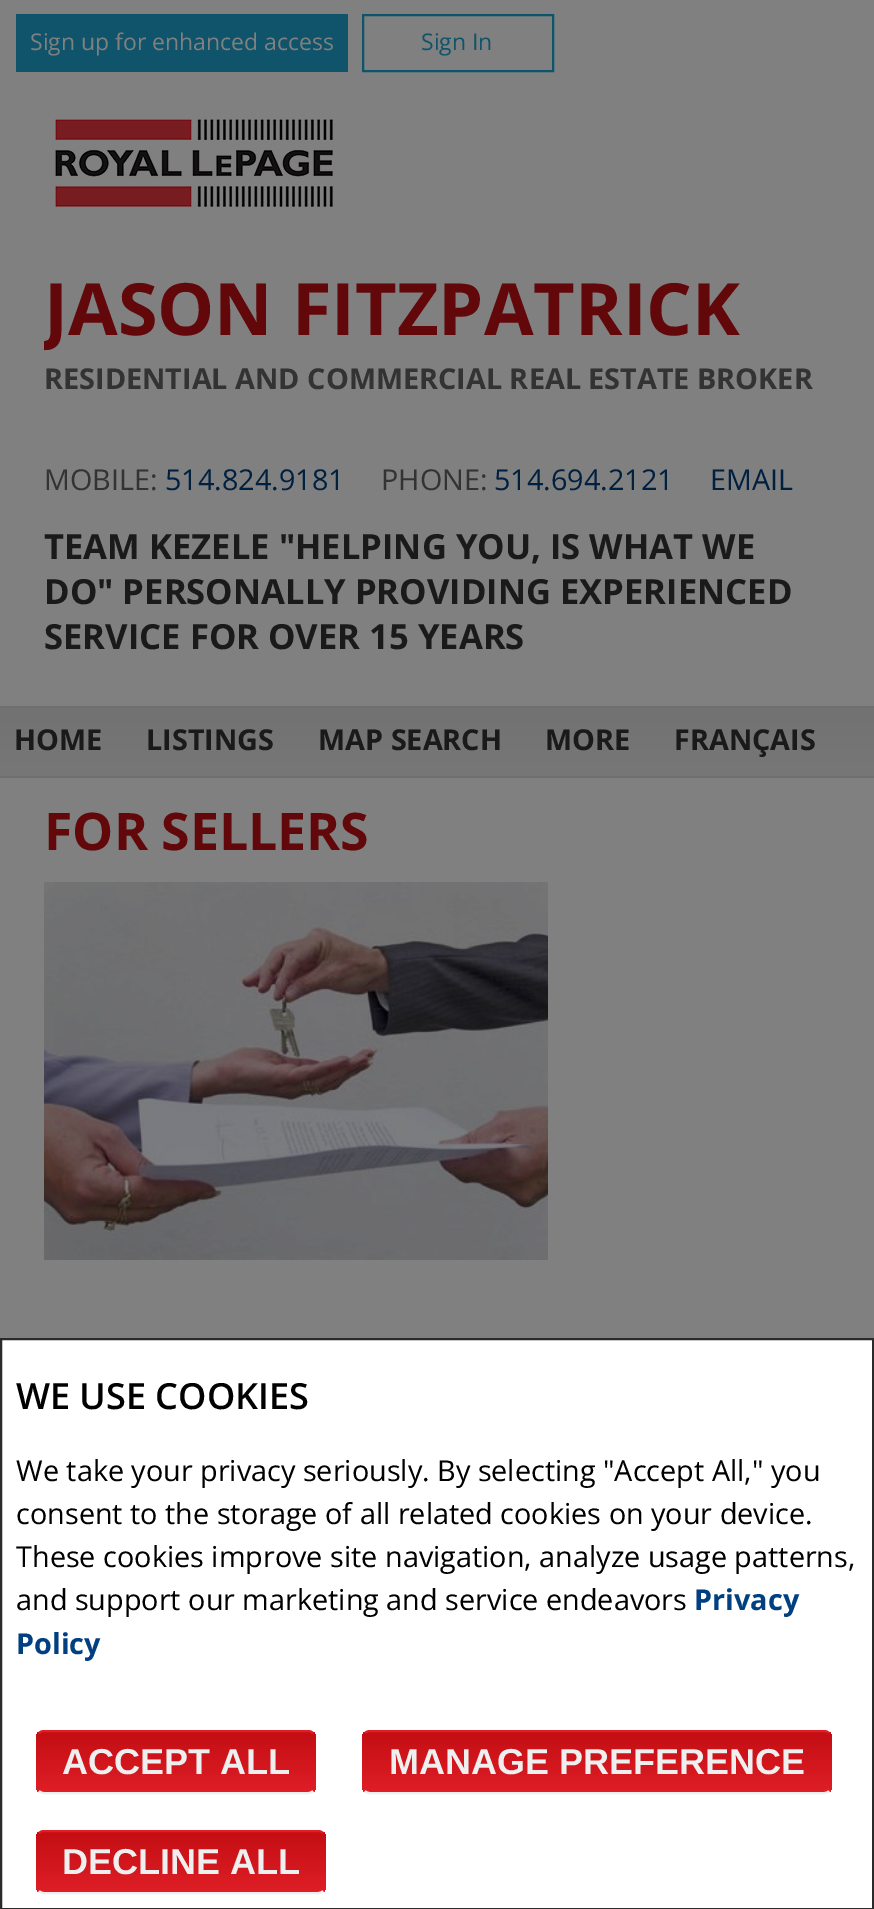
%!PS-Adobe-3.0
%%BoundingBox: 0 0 874 1909
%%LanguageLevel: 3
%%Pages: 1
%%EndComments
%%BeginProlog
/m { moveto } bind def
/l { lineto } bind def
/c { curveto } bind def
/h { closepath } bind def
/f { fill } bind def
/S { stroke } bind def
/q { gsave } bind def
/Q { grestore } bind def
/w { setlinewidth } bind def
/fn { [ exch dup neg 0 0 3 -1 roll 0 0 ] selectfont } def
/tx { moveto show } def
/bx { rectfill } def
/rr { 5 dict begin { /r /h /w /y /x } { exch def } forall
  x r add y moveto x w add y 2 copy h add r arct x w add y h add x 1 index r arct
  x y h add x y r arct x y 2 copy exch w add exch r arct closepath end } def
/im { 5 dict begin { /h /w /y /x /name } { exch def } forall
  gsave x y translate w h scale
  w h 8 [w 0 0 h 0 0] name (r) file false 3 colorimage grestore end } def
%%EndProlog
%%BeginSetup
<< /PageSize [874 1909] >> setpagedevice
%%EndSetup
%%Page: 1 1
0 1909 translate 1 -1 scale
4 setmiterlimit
0.502 setgray
0 0 874 1909 bx
0.059 0.329 0.416 setrgbcolor
16 14 332 58 bx
/OpenSans-Regular 23 fn
0.502 setgray
(Sign up for enhanced access) 30 50 tx
0.059 0.329 0.416 setrgbcolor
2 w
363 15 190 56 rectstroke
(Sign In) 421 50 tx
(image0.raw) 55 119 278 91 im
q
44 108 786 576 rectclip
/OpenSans-Bold 72 fn
0.384 0.027 0.039 setrgbcolor
(JASON FITZPATRICK) 44 335 tx
Q
/OpenSans-Bold 28.8 fn
0.2 setgray
(RESIDENTIAL AND COMMERCIAL REAL ESTATE BROKER) 44 389 tx
/OpenSans-Regular 28.8 fn
(MOBILE:) 44 490 tx
0 0.125 0.251 setrgbcolor
(514.824.9181) 165 490 tx
0.2 setgray
(PHONE:) 381 490 tx
0 0.125 0.251 setrgbcolor
(514.694.2121) 494 490 tx
(EMAIL) 710 490 tx
/OpenSans-Bold 34.6 fn
0.102 setgray
(TEAM KEZELE "HELPING YOU, IS WHAT WE) 44 559 tx
(DO" PERSONALLY PROVIDING EXPERIENCED) 44 604 tx
(SERVICE FOR OVER 15 YEARS) 44 649 tx
q 0 708 m 874 708 l 874 776 l 0 776 l h clip newpath
<< /ShadingType 2 /ColorSpace /DeviceRGB /Coords [437 708 437 776] /Extend [true true] /Function << /FunctionType 2 /Domain [0 1] /C0 [0.447 0.447 0.447] /C1 [0.467 0.467 0.467] /N 1 >> >> shfill Q
0.435 setgray
0 706 874 2 bx
0 776 874 2 bx
/OpenSans-Bold 28.8 fn
0.102 setgray
(HOME) 14 750 tx
(LISTINGS) 146 750 tx
(MAP SEARCH) 318 750 tx
(MORE) 545 750 tx
(FRANÇAIS) 674 750 tx
/OpenSans-Bold 51.75 fn
0.384 0.027 0.039 setrgbcolor
(FOR SELLERS) 44 850 tx
(image1.raw) 44 882 504 378 im
1 setgray
1 1339 m 873 1339 l 873 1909 l 1 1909 l h q f Q
0.169 setgray
S
/OpenSans-SemiBold 36 fn
0 setgray
(WE USE COOKIES) 16 1409 tx
/OpenSans-Regular 28.8 fn
(We take your privacy seriously.) 16 1481 tx
(By selecting "Accept All," you) 437 1481 tx
(consent to the storage of all related cookies on your device.) 16 1524 tx
(These cookies improve site navigation, analyze usage patterns,) 16 1567 tx
(and support our marketing and service endeavors) 16 1610 tx
/OpenSans-Bold 28.8 fn
0 0.251 0.502 setrgbcolor
(Privacy) 694 1610 tx
(Policy) 16 1654 tx
q
36 1730 280 64 8 rr clip newpath
q 36 1732 m 316 1732 l 316 1792 l 36 1792 l h clip newpath
<< /ShadingType 2 /ColorSpace /DeviceRGB /Coords [176 1732 176 1792] /Extend [true true] /Function << /FunctionType 2 /Domain [0 1] /C0 [0.765 0.055 0.075] /C1 [0.875 0.118 0.149] /N 1 >> >> shfill Q
Q
0.875 0.118 0.149 setrgbcolor
39 1733 m 40.5 1731.5 42 1731 44 1731 c 308 1731 l 310 1731 311.5 1731.5 313 1733 c S
0.937 setgray
313 1791 m 311.5 1792.5 310 1793 308 1793 c 44 1793 l 42 1793 40.5 1792.5 39 1791 c S
/LiberationSans-Bold 36 fn
(ACCEPT ALL) 62 1774 tx
q
362 1730 470 64 8 rr clip newpath
q 362 1732 m 832 1732 l 832 1792 l 362 1792 l h clip newpath
<< /ShadingType 2 /ColorSpace /DeviceRGB /Coords [597 1732 597 1792] /Extend [true true] /Function << /FunctionType 2 /Domain [0 1] /C0 [0.765 0.055 0.075] /C1 [0.875 0.118 0.149] /N 1 >> >> shfill Q
Q
0.875 0.118 0.149 setrgbcolor
365 1733 m 366.5 1731.5 368 1731 370 1731 c 824 1731 l 826 1731 827.5 1731.5 829 1733 c S
0.937 setgray
829 1791 m 827.5 1792.5 826 1793 824 1793 c 370 1793 l 368 1793 366.5 1792.5 365 1791 c S
(MANAGE PREFERENCE) 389 1774 tx
q
36 1830 290 64 8 rr clip newpath
q 36 1832 m 326 1832 l 326 1892 l 36 1892 l h clip newpath
<< /ShadingType 2 /ColorSpace /DeviceRGB /Coords [181 1832 181 1892] /Extend [true true] /Function << /FunctionType 2 /Domain [0 1] /C0 [0.765 0.055 0.075] /C1 [0.875 0.118 0.149] /N 1 >> >> shfill Q
Q
0.875 0.118 0.149 setrgbcolor
39 1833 m 40.5 1831.5 42 1831 44 1831 c 318 1831 l 320 1831 321.5 1831.5 323 1833 c S
0.937 setgray
323 1891 m 321.5 1892.5 320 1893 318 1893 c 44 1893 l 42 1893 40.5 1892.5 39 1891 c S
(DECLINE ALL) 62 1874 tx
showpage
%%EOF
